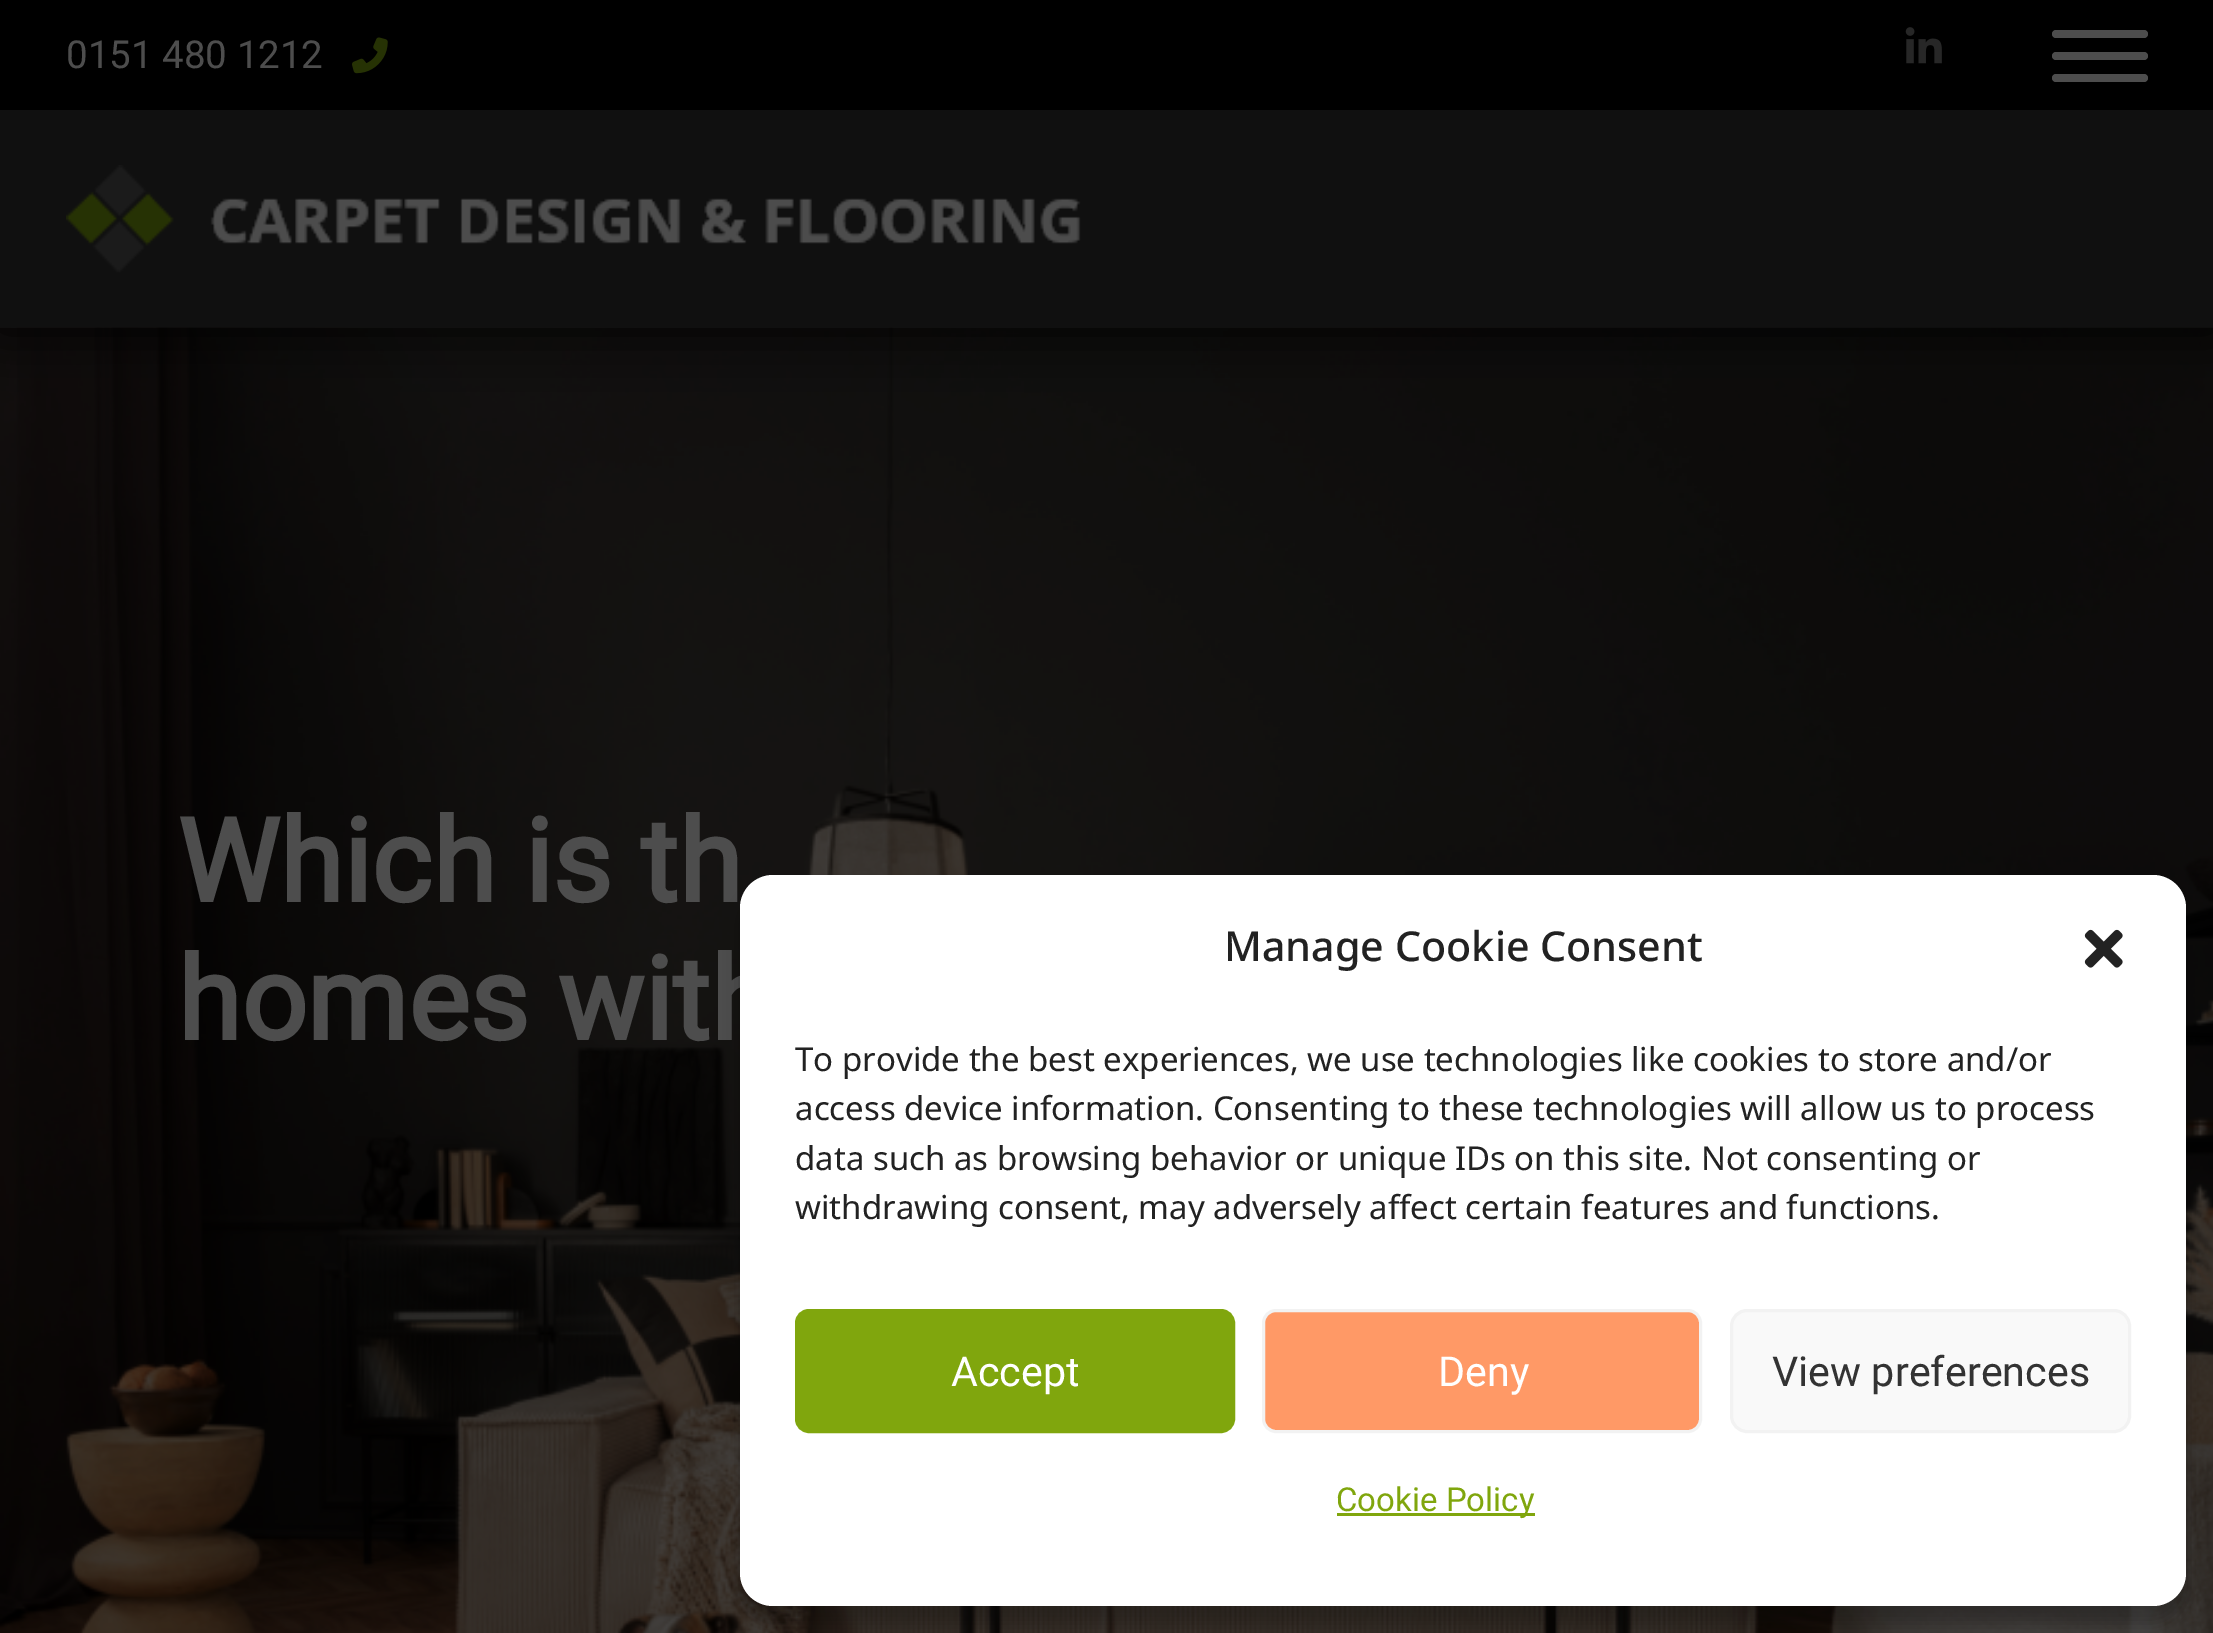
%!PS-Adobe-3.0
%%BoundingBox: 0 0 2213 1633
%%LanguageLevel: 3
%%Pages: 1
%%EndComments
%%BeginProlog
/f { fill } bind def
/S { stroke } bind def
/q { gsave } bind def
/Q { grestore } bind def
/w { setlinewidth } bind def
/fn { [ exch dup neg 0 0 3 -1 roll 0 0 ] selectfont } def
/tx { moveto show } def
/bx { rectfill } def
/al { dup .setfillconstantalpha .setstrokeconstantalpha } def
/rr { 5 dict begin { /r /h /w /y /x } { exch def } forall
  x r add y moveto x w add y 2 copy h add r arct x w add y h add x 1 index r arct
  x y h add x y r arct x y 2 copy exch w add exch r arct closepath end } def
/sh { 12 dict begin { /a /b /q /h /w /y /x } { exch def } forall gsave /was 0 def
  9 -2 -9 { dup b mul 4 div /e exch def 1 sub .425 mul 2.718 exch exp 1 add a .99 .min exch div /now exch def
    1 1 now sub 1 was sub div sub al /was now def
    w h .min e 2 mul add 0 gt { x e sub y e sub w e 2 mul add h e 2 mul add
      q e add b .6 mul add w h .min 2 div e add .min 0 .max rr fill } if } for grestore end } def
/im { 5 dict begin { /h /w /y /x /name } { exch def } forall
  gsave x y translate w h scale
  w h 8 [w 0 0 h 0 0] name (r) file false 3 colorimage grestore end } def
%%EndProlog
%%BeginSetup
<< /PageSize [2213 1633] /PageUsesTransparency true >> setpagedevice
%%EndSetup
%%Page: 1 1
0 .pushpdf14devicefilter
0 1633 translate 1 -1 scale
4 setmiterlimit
1 setgray
0 0 2213 1633 bx
(image3.raw) 0 327 2213 1306 im
0 setgray
-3 -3 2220 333 0 27.5 1 sh
0.063 setgray
0 110 2213 217 bx
0 setgray
0 0 2213 110 bx
/Roboto-Regular 38.5 fn
0.302 setgray
(0151 480 1212) 66 68 tx
(image0.raw) 352 37 36 37 im
(image1.raw) 1905 27 37 37 im
2052 30 96 8 4 rr f
2052 52 96 8 4 rr f
2052 74 96 8 4 rr f
(image2.raw) 66 165 1015 108 im
/Roboto-Bold 115.5 fn
(Which is th) 177 902 tx
(homes with) 177 1040 tx
0 setgray
740 891 1446 732 33 8 0.23 sh
1 setgray
740 875 1446 731 33 rr f
/NotoSans-Medium 41.25 fn
0.133 setgray
(Manage Cookie Consent) 1224 961 tx
(image4.raw) 2084 929 39 39 im
/NotoSans-Regular 33 fn
(To provide the best experiences, we use technologies like cookies to store and/or) 795 1071 tx
(access device information. Consenting to these technologies will allow us to process) 795 1120 tx
(data such as browsing behavior or unique IDs on this site. Not consenting or) 795 1170 tx
(withdrawing consent, may adversely affect certain features and functions.) 795 1219 tx
0.502 0.651 0.051 setrgbcolor
796.5 1310.5 437 121 12.5 rr q f Q
3 w
S
/Roboto-Regular 41.25 fn
1 setgray
(Accept) 951 1386 tx
1 0.6 0.4 setrgbcolor
1263.5 1310.5 437 121 12.5 rr q f Q
0.949 setgray
S
1 setgray
(Deny) 1438 1386 tx
0.976 setgray
1731.5 1310.5 398 121 15.5 rr q f Q
0.949 setgray
S
0.2 setgray
(View preferences) 1772 1386 tx
0.502 0.651 0.051 setrgbcolor
1337 1513 198 3 bx
/Roboto-Regular 33 fn
(Cookie Policy) 1336 1511 tx
.poppdf14devicefilter showpage
%%EOF
